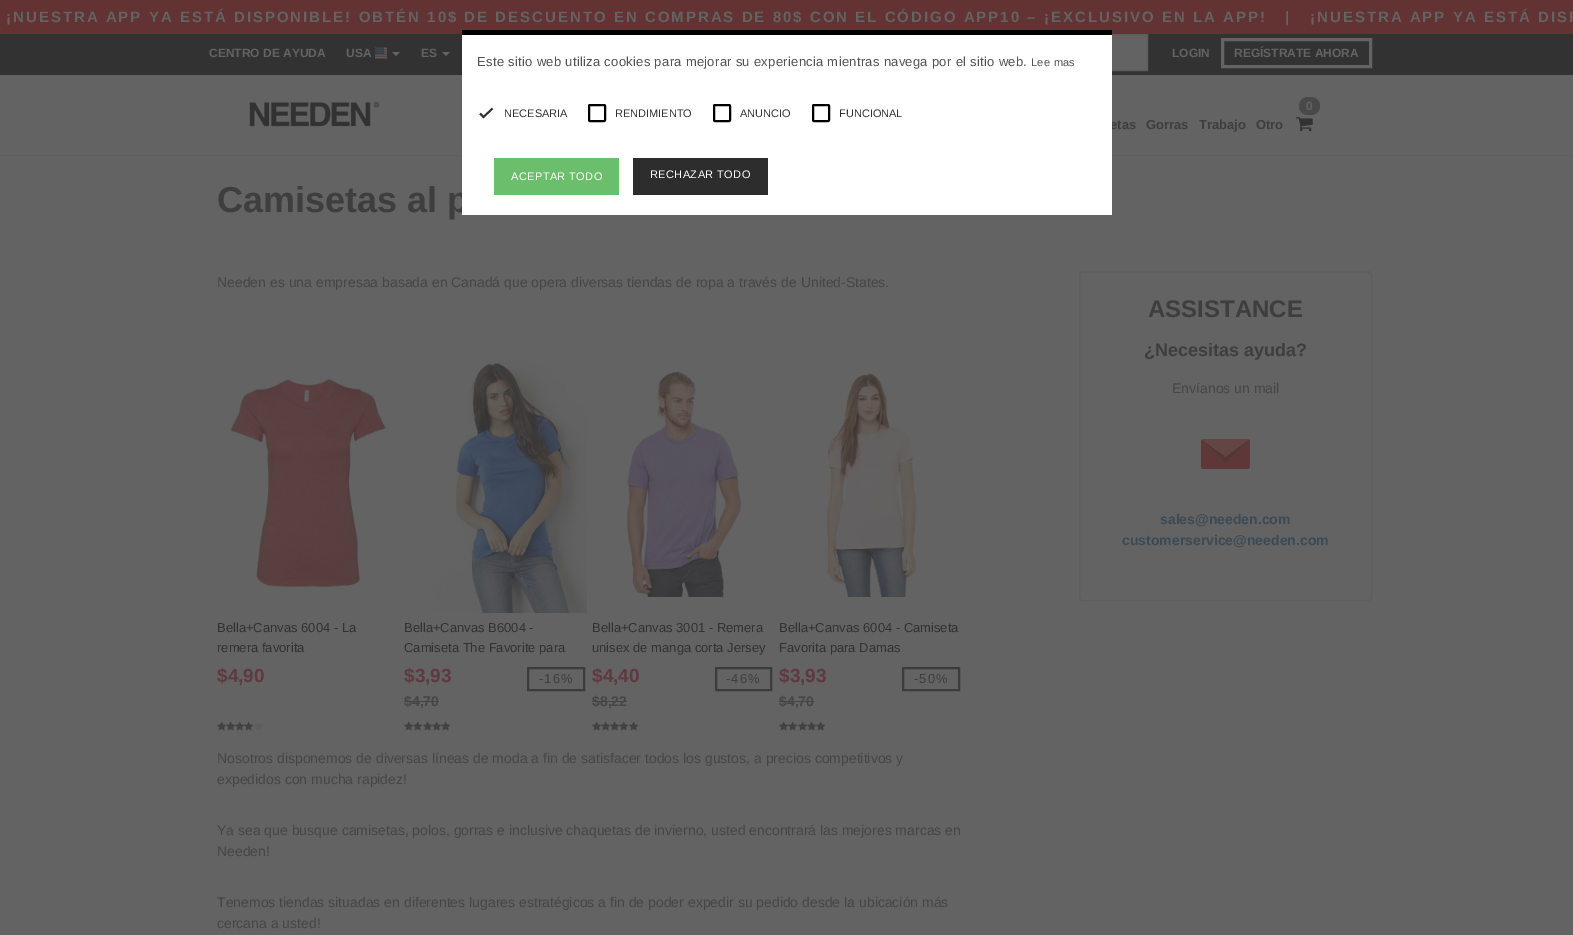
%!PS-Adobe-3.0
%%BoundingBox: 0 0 1573 935
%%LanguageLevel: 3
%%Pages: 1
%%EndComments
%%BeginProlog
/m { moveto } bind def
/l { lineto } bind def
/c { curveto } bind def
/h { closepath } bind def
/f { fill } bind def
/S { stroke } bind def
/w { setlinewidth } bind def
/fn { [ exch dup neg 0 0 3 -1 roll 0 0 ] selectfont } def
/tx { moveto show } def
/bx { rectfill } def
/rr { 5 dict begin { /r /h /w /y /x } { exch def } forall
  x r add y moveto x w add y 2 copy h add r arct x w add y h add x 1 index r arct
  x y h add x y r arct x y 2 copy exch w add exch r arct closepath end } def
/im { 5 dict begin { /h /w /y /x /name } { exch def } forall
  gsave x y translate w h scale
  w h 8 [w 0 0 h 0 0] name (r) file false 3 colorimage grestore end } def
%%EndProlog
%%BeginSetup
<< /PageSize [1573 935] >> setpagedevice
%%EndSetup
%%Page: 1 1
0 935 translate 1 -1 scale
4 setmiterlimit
0.388 setgray
0 0 1573 935 bx
0.388 0.196 0.196 setrgbcolor
0 0 1573 34 bx
/LiberationSans-Bold 15 fn
0.388 setgray
6 22 m 2 0 (¡NUESTRA APP YA ESTÁ DISPONIBLE! OBTÉN 10$ DE DESCUENTO EN COMPRAS DE 80$ CON EL CÓDIGO APP10 – ¡EXCLUSIVO EN LA APP!) ashow
1285 22 m 2 0 (|) ashow
1310 22 m 2 0 (¡NUESTRA APP YA ESTÁ DISP) ashow
0.196 setgray
0 34 1573 41 bx
/LiberationSans-Bold 12 fn
0.388 setgray
(CENTRO DE AYUDA) 209 57 tx
(USA) 346 57 tx
(image0.raw) 375 47 12 12 im
392 52 m 400 52 l 396 56 l h f
(ES) 421 57 tx
442 52 m 450 52 l 446 56 l h f
1112 35 35 35 bx
0.365 setgray
933.5 34.5 214 36 rectstroke
0.388 setgray
(LOGIN) 1172 57 tx
3 w
1222.5 39.5 148 27 rectstroke
(REGÍSTRATE AHORA) 1234 57 tx
0.373 setgray
0 155 1573 1 bx
/LiberationSans-Bold 13 fn
0.243 setgray
(etas) 1110 129 tx
/LiberationSans-Bold 36 fn
(Camisetas al p) 217 212 tx
1 setgray
462 35 650 180 bx
0 setgray
462 30 650 5 bx
/LiberationSans-Regular 13 fn
0.322 setgray
477 66 m 0.3 0 (Este sitio web utiliza cookies para mejorar su experiencia mientras navega por el sitio web.) ashow
/LiberationSans-Regular 11 fn
1031 66 m 0.3 0 (Lee mas) ashow
0.176 setgray
1.8 w
480 113.5 m 483.5 117 l 492.5 108.5 l S
0.196 setgray
(NECESARIA) 504 117 tx
0 setgray
2 w
589 105 16 16 1 rr S
0.196 setgray
(RENDIMIENTO) 615 117 tx
0 setgray
714 105 16 16 1 rr S
0.196 setgray
(ANUNCIO) 740 117 tx
0 setgray
813 105 16 16 1 rr S
0.196 setgray
(FUNCIONAL) 839 117 tx
0.42 0.745 0.42 setrgbcolor
494 158 125 37 bx
1 setgray
511 180 m 0.4 0 (ACEPTAR TODO) ashow
0.176 setgray
633 158 135 37 bx
1 setgray
650 178 m 0.4 0 (RECHAZAR TODO) ashow
(image1.raw) 249 102 130 25 im
0.286 setgray
1299 97 21 18 9 rr f
/LiberationSans-Bold 12 fn
0.388 setgray
(0) 1306 110 tx
(image2.raw) 1296 117 17 15 im
/LiberationSans-Bold 13 fn
0.243 setgray
(Gorras) 1146 129 tx
(Trabajo) 1199 129 tx
(Otro) 1256 129 tx
/LiberationSans-Regular 14 fn
0.275 setgray
(Needen es una empresaa basada en Canadá que opera diversas tiendas de ropa a través de United-States.) 217 287 tx
(image3.raw) 229 375 158 213 im
/LiberationSans-Regular 13 fn
0.196 setgray
(Bella+Canvas 6004 - La) 217 632 tx
(remera favorita) 217 652 tx
/LiberationSans-Bold 19 fn
0.373 0.22 0.251 setrgbcolor
($4,90) 217 682 tx
(image4.raw) 217 721 10 10 im
(image5.raw) 226 721 10 10 im
(image5.raw) 235 721 10 10 im
(image5.raw) 244 721 10 10 im
(image6.raw) 254 721 9 10 im
(image7.raw) 404 353 183 260 im
/LiberationSans-Regular 13 fn
0.196 setgray
(Bella+Canvas B6004 -) 404 632 tx
(Camiseta The Favorite para) 404 652 tx
/LiberationSans-Bold 19 fn
0.373 0.22 0.251 setrgbcolor
($3,93) 404 682 tx
/LiberationSans-Bold 14 fn
0.275 setgray
($4,70) 404 706 tx
404 701 35 1 bx
0.235 setgray
528 668 56 22 rectstroke
/LiberationSans-Regular 13 fn
0.243 setgray
539 683 m 1 0 (-16%) ashow
(image4.raw) 404 721 10 10 im
(image5.raw) 413 721 10 10 im
(image4.raw) 423 721 10 10 im
(image5.raw) 432 721 10 10 im
(image5.raw) 441 721 10 10 im
(image8.raw) 624 369 120 228 im
0.196 setgray
(Bella+Canvas 3001 - Remera) 592 632 tx
(unisex de manga corta Jersey) 592 652 tx
/LiberationSans-Bold 19 fn
0.373 0.22 0.251 setrgbcolor
($4,40) 592 682 tx
/LiberationSans-Bold 14 fn
0.275 setgray
($8,22) 592 706 tx
592 701 35 1 bx
0.235 setgray
716 668 55 22 rectstroke
/LiberationSans-Regular 13 fn
0.243 setgray
726 683 m 1 0 (-46%) ashow
(image4.raw) 592 721 10 10 im
(image5.raw) 601 721 10 10 im
(image5.raw) 610 721 10 10 im
(image5.raw) 619 721 10 10 im
(image4.raw) 629 721 10 10 im
(image9.raw) 824 372 94 225 im
0.196 setgray
(Bella+Canvas 6004 - Camiseta) 779 632 tx
(Favorita para Damas) 779 652 tx
/LiberationSans-Bold 19 fn
0.373 0.22 0.251 setrgbcolor
($3,93) 779 682 tx
/LiberationSans-Bold 14 fn
0.275 setgray
($4,70) 779 706 tx
779 701 35 1 bx
0.235 setgray
903 668 56 22 rectstroke
/LiberationSans-Regular 13 fn
0.243 setgray
914 683 m 1 0 (-50%) ashow
(image4.raw) 779 721 10 10 im
(image5.raw) 788 721 10 10 im
(image4.raw) 798 721 10 10 im
(image5.raw) 807 721 10 10 im
(image5.raw) 816 721 10 10 im
/LiberationSans-Regular 14 fn
0.275 setgray
(Nosotros disponemos de diversas líneas de moda a fin de satisfacer todos los gustos, a precios competitivos y) 217 763 tx
(expedidos con mucha rapidez!) 217 784 tx
(Ya sea que busque camisetas, polos, gorras e inclusive chaquetas de invierno, usted encontrará las mejores marcas en) 217 835 tx
(Needen!) 217 856 tx
(Tenemos tiendas situadas en diferentes lugares estratégicos a fin de poder expedir su pedido desde la ubicación más) 217 907 tx
(cercana a usted!) 217 928 tx
0.373 setgray
1083 273 m 1368 273 l 1370 273 1371 274 1371 276 c 1371 274 1370 272 1368 272 c 1083 272 l 1081 272 1080 274 1080 276 c 1080 274 1081 273 1083 273 c h f
0.369 setgray
1 w
1079.5 271.5 292 329 3.5 rr S
/LiberationSans-Bold 24 fn
0.243 setgray
(ASSISTANCE) 1148 317 tx
/LiberationSans-Bold 18 fn
(¿Necesitas ayuda?) 1144 356 tx
/LiberationSans-Regular 14 fn
0.275 setgray
(Envíanos un mail) 1172 393 tx
(image10.raw) 1201 439 49 30 im
/LiberationSans-Bold 14 fn
0.235 0.29 0.333 setrgbcolor
(sales@needen.com) 1160 524 tx
(customerservice@needen.com) 1122 545 tx
showpage
%%EOF
